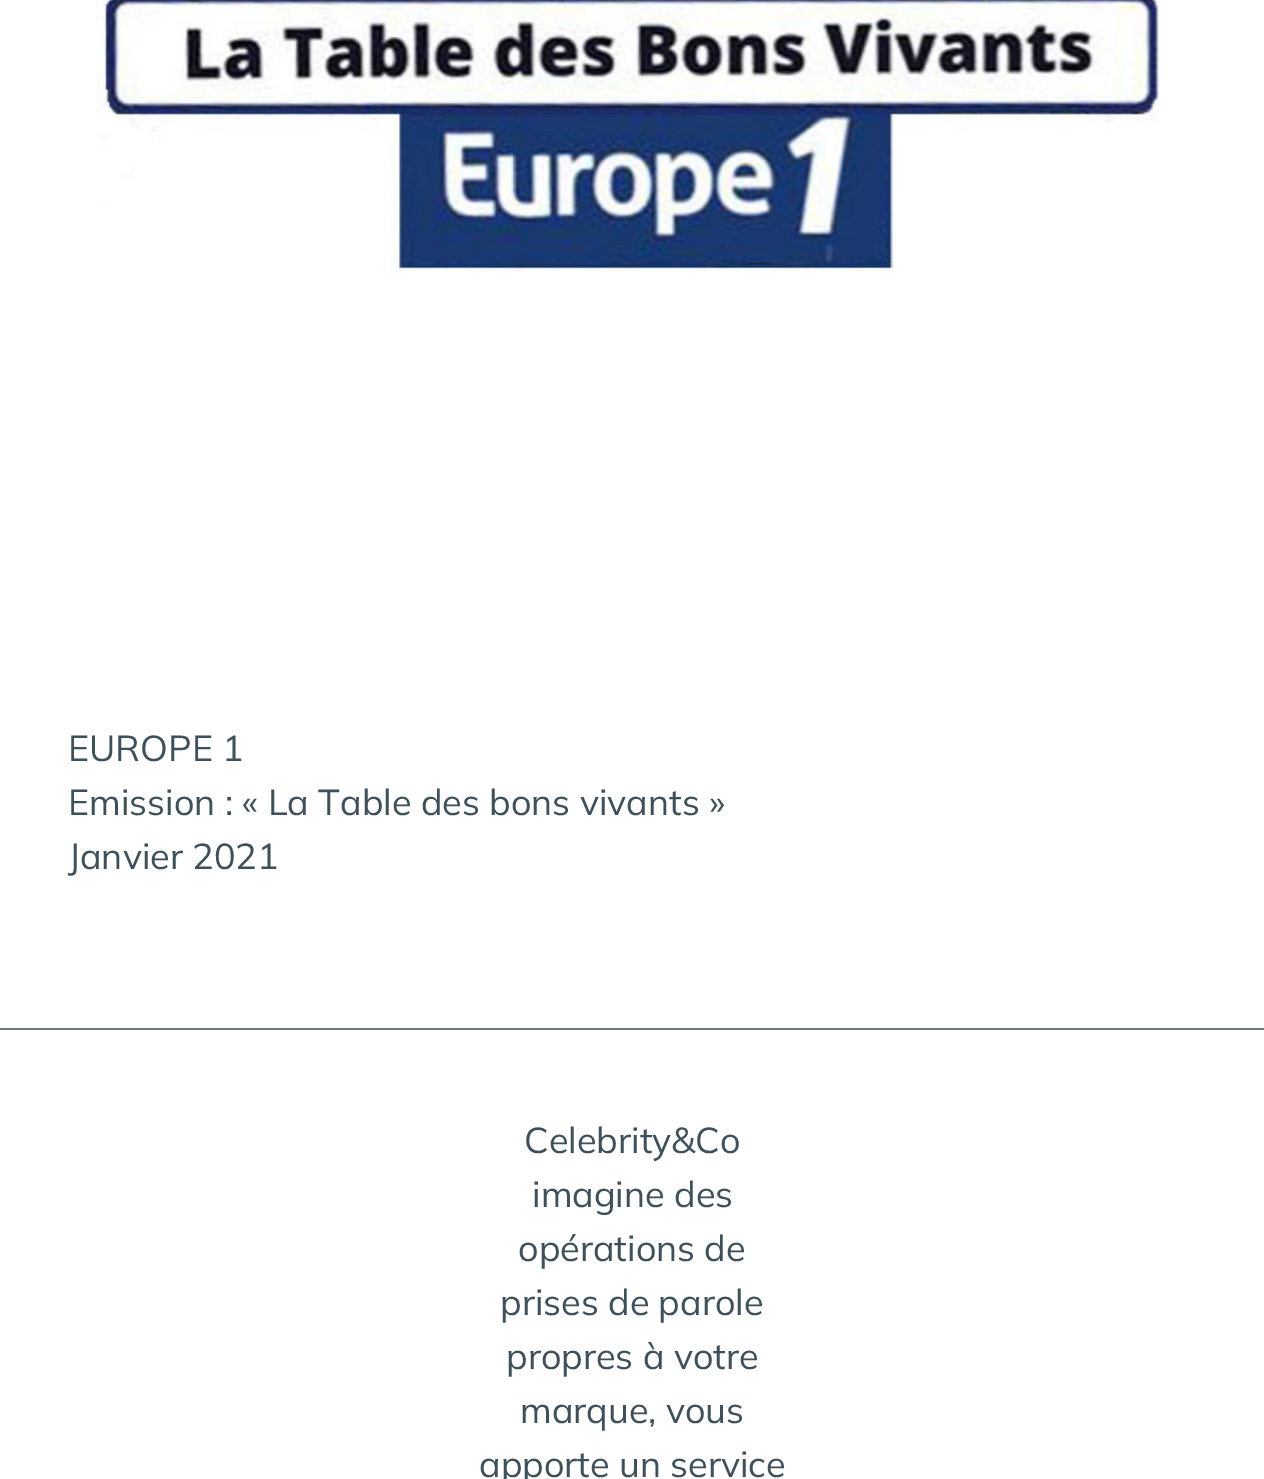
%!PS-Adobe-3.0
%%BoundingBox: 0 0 1264 1479
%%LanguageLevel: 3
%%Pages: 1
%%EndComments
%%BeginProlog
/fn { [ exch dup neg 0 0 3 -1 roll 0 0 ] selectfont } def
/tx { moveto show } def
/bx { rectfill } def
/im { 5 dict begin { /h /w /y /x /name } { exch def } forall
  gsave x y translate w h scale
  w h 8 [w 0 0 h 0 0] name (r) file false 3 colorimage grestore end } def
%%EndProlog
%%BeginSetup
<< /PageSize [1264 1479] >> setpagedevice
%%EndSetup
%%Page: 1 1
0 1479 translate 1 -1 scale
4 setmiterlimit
1 setgray
0 0 1264 1479 bx
(image0.raw) 96 0 1064 272 im
/Mulish-Regular 36 fn
0.243 0.314 0.353 setrgbcolor
(EUROPE 1) 68 761 tx
(Emission : « La Table des bons vivants ») 68 815 tx
(Janvier 2021) 68 869 tx
0.424 0.482 0.514 setrgbcolor
0 1028 1264 2 bx
0.243 0.314 0.353 setrgbcolor
(Celebrity&Co) 524 1153 tx
(imagine des) 532 1207 tx
(opérations de) 518 1261 tx
(prises de parole) 500 1315 tx
(propres à votre) 506 1369 tx
(marque, vous) 520 1423 tx
(apporte un service) 479 1477 tx
showpage
%%EOF
